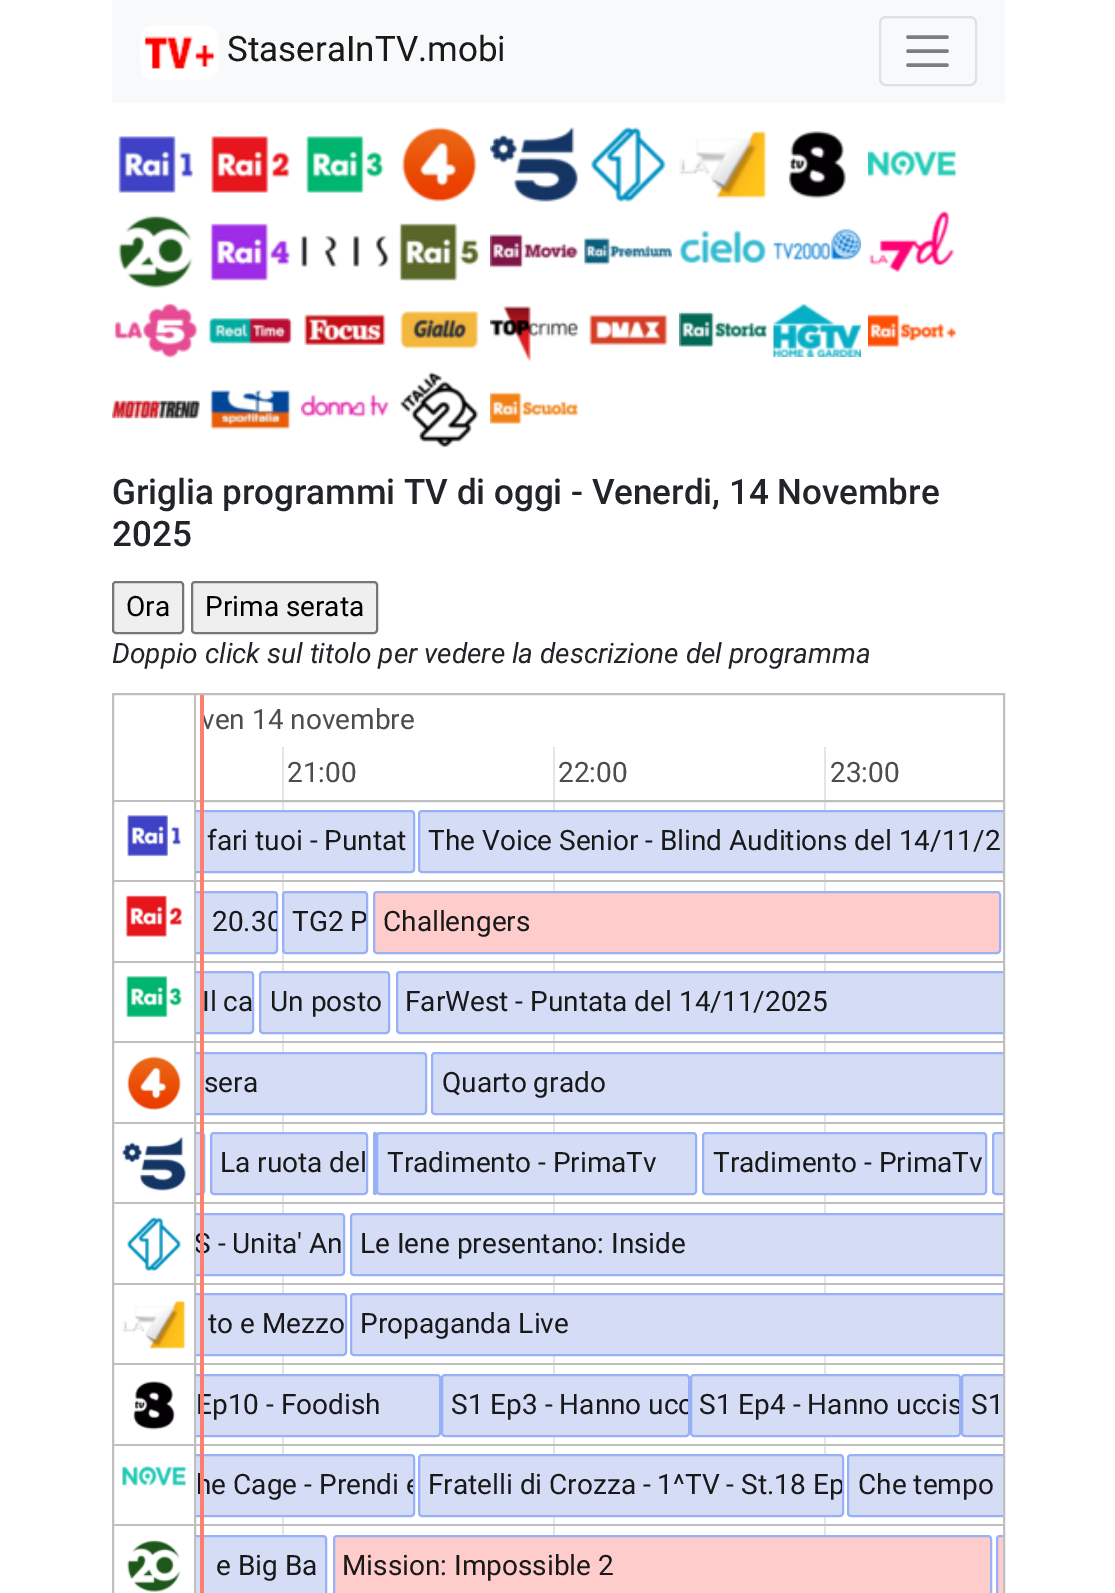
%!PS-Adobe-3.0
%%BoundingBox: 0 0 1115 1593
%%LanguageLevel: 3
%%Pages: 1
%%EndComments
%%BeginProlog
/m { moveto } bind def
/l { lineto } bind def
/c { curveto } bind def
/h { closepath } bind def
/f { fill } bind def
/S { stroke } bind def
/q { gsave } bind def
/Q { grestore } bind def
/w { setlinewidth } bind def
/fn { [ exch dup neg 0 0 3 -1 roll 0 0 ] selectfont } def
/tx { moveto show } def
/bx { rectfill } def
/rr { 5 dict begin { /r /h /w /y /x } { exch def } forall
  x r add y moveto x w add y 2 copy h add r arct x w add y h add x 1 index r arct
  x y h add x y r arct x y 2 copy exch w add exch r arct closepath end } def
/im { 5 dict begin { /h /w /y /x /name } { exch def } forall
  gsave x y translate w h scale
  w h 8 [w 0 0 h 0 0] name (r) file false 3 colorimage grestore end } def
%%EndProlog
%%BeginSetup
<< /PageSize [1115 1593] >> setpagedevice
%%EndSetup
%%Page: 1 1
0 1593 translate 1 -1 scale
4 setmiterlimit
1 setgray
0 0 1115 1593 bx
0.973 0.976 0.98 setrgbcolor
112 0 893 103 bx
(image0.raw) 140 25 79 55 im
/Roboto-Regular 35 fn
0.098 setgray
(StaseraInTV.mobi) 227 61 tx
0.875 0.878 0.882 setrgbcolor
2 w
880 17 96 68 6 rr S
0.486 0.49 0.49 setrgbcolor
3.5 w
1 setlinecap
908 37 m 947 37 l 908 51 m 947 51 l 908 65 m 947 65 l S
(image1.raw) 118 136 75 57 im
(image2.raw) 211 136 79 57 im
(image3.raw) 306 136 78 57 im
(image4.raw) 402 127 75 75 im
(image5.raw) 490 127 88 75 im
(image6.raw) 591 127 75 75 im
(image7.raw) 679 131 88 68 im
(image8.raw) 788 131 58 68 im
(image9.raw) 868 150 88 28 im
(image10.raw) 118 215 75 73 im
(image11.raw) 210 223 81 58 im
(image12.raw) 301 235 88 33 im
(image13.raw) 399 223 81 58 im
(image14.raw) 490 234 88 34 im
(image15.raw) 584 237 88 28 im
(image16.raw) 679 230 88 35 im
(image17.raw) 773 228 88 33 im
(image18.raw) 869 211 86 62 im
(image19.raw) 113 302 85 56 im
(image20.raw) 208 317 85 28 im
(image21.raw) 304 314 82 32 im
(image22.raw) 400 311 79 38 im
(image23.raw) 490 306 88 55 im
(image24.raw) 589 314 79 32 im
(image25.raw) 679 311 88 36 im
(image26.raw) 773 304 88 53 im
(image27.raw) 868 314 88 33 im
(image28.raw) 112 400 88 19 im
(image29.raw) 210 390 81 40 im
(image30.raw) 301 394 88 23 im
(image31.raw) 400 372 79 76 im
(image32.raw) 490 391 88 33 im
/Roboto-Medium 35 fn
0.129 0.145 0.161 setrgbcolor
(Griglia programmi TV di oggi - Venerdi, 14 Novembre) 112 504 tx
(2025) 112 546 tx
0.937 setgray
113 582 70 51 3 rr q f Q
0.463 setgray
2 w
0 setlinecap
S
/Roboto-Regular 28 fn
0 setgray
(Ora) 126 616 tx
0.937 setgray
192 582 185 51 3 rr q f Q
0.463 setgray
S
0 setgray
(Prima serata) 205 616 tx
/Roboto-Italic 28 fn
0.129 0.145 0.161 setrgbcolor
(Doppio click sul titolo per vedere la descrizione del programma) 112 663 tx
0.749 setgray
113 694 891 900 rectstroke
/Roboto-Regular 28 fn
0.302 setgray
(ven 14 novembre) 201 729 tx
0.898 setgray
282 747 2 788 bx
553 747 2 788 bx
824 747 2 788 bx
q
114 695 889 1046 rectclip
0.749 setgray
195 801 812 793 rectstroke
Q
0.749 setgray
196 880 807 2 bx
0.835 0.867 0.965 setrgbcolor
196 810 m 411 810 l 413 810 415 812 415 814 c 415 869 l 415 871 413 873 411 873 c 196 873 l h f
q
196 802 807 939 rectclip
0.592 0.69 0.973 setrgbcolor
171 811 243 61 3 rr S
Q
0.749 setgray
196 961 807 2 bx
0.835 0.867 0.965 setrgbcolor
196 891 m 274 891 l 276 891 278 893 278 895 c 278 950 l 278 952 276 954 274 954 c 196 954 l h f
q
196 802 807 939 rectclip
0.592 0.69 0.973 setrgbcolor
148 892 129 61 3 rr S
Q
0.749 setgray
196 1041 807 2 bx
0.835 0.867 0.965 setrgbcolor
196 971 m 250 971 l 252 971 254 973 254 975 c 254 1030 l 254 1032 252 1034 250 1034 c 196 1034 l h f
q
196 802 807 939 rectclip
0.592 0.69 0.973 setrgbcolor
192 972 61 61 3 rr S
Q
0.749 setgray
196 1122 807 2 bx
0.835 0.867 0.965 setrgbcolor
196 1052 m 423 1052 l 425 1052 427 1054 427 1056 c 427 1111 l 427 1113 425 1115 423 1115 c 196 1115 l h f
q
196 802 807 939 rectclip
0.592 0.69 0.973 setrgbcolor
143 1053 283 61 3 rr S
Q
0.749 setgray
196 1202 807 2 bx
0.835 0.867 0.965 setrgbcolor
196 1132 m 201 1132 l 203 1132 205 1134 205 1136 c 205 1191 l 205 1193 203 1195 201 1195 c 196 1195 l h f
q
196 802 807 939 rectclip
0.592 0.69 0.973 setrgbcolor
12 1133 192 61 3 rr S
Q
0.749 setgray
196 1283 807 2 bx
0.835 0.867 0.965 setrgbcolor
196 1213 m 341 1213 l 343 1213 345 1215 345 1217 c 345 1272 l 345 1274 343 1276 341 1276 c 196 1276 l h f
q
196 802 807 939 rectclip
0.592 0.69 0.973 setrgbcolor
138 1214 206 61 3 rr S
Q
q
196 1215 147 59 rectclip
0.098 setgray
(S - Unita' An) 194 1253 tx
Q
0.749 setgray
196 1363 807 2 bx
0.835 0.867 0.965 setrgbcolor
196 1293 m 343 1293 l 345 1293 347 1295 347 1297 c 347 1352 l 347 1354 345 1356 343 1356 c 196 1356 l h f
q
196 802 807 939 rectclip
0.592 0.69 0.973 setrgbcolor
171 1294 175 61 3 rr S
Q
0.749 setgray
196 1444 807 2 bx
0.835 0.867 0.965 setrgbcolor
196 1374 m 437 1374 l 439 1374 441 1376 441 1378 c 441 1433 l 441 1435 439 1437 437 1437 c 196 1437 l h f
q
196 802 807 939 rectclip
0.592 0.69 0.973 setrgbcolor
148 1375 292 61 3 rr S
Q
0.098 setgray
(Ep10 - Foodish) 196 1414 tx
0.749 setgray
196 1524 807 2 bx
0.835 0.867 0.965 setrgbcolor
196 1454 m 411 1454 l 413 1454 415 1456 415 1458 c 415 1513 l 415 1515 413 1517 411 1517 c 196 1517 l h f
q
196 802 807 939 rectclip
0.592 0.69 0.973 setrgbcolor
171 1455 243 61 3 rr S
Q
q
196 1456 217 60 rectclip
0.098 setgray
(he Cage - Prendi e) 196 1494 tx
Q
196 1535 m 323 1535 l 325 1535 327 1537 327 1539 c 327 1593 l 327 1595 325 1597 323 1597 c 196 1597 l h f
q
196 802 807 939 rectclip
0.592 0.69 0.973 setrgbcolor
174 1536 152 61 3 rr S
Q
1 0.498 0.431 setrgbcolor
200 695 4 898 bx
0.749 setgray
194 695 2 105 bx
0.302 setgray
(21:00) 287 782 tx
(22:00) 558 782 tx
(23:00) 830 782 tx
0.749 setgray
114 800 80 2 bx
114 880 80 2 bx
(image33.raw) 127 815 54 42 im
114 961 80 2 bx
(image34.raw) 126 895 56 42 im
114 1041 80 2 bx
(image35.raw) 126 976 56 42 im
114 1122 80 2 bx
(image36.raw) 127 1056 54 54 im
114 1202 80 2 bx
(image37.raw) 122 1137 64 54 im
114 1283 80 2 bx
(image38.raw) 127 1217 54 54 im
114 1363 80 2 bx
(image39.raw) 122 1300 64 49 im
114 1444 80 2 bx
(image40.raw) 133 1381 42 49 im
114 1524 80 2 bx
(image41.raw) 122 1466 64 21 im
(image42.raw) 127 1540 54 52 im
0.098 setgray
(fari tuoi - Puntat) 207 850 tx
0.835 0.867 0.965 setrgbcolor
422 810 m 1003 810 l 1003 873 l 422 873 l 420 873 418 871 418 869 c 418 814 l 418 812 420 810 422 810 c h f
q
196 802 807 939 rectclip
0.592 0.69 0.973 setrgbcolor
419 811 649 61 3 rr S
Q
0.098 setgray
(The Voice Senior - Blind Auditions del 14/11/2) 428 850 tx
q
196 893 81 59 rectclip
(20.30) 212 931 tx
Q
0.835 0.867 0.965 setrgbcolor
283 892 84 61 3 rr q f Q
0.592 0.69 0.973 setrgbcolor
S
q
284 893 82 59 rectclip
0.098 setgray
(TG2 P) 292 931 tx
Q
1 0.8 0.8 setrgbcolor
374 892 626 61 3 rr q f Q
0.592 0.69 0.973 setrgbcolor
S
0.098 setgray
(Challengers) 383 931 tx
(Il ca) 202 1011 tx
0.835 0.867 0.965 setrgbcolor
260 972 129 61 3 rr q f Q
0.592 0.69 0.973 setrgbcolor
S
0.098 setgray
(Un posto) 270 1011 tx
0.835 0.867 0.965 setrgbcolor
400 971 m 1003 971 l 1003 1034 l 400 1034 l 398 1034 396 1032 396 1030 c 396 975 l 396 973 398 971 400 971 c h f
q
196 802 807 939 rectclip
0.592 0.69 0.973 setrgbcolor
397 972 694 61 3 rr S
Q
0.098 setgray
(FarWest - Puntata del 14/11/2025) 405 1011 tx
(sera) 204 1092 tx
0.835 0.867 0.965 setrgbcolor
435 1052 m 1003 1052 l 1003 1115 l 435 1115 l 433 1115 431 1113 431 1111 c 431 1056 l 431 1054 433 1052 435 1052 c h f
q
196 802 807 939 rectclip
0.592 0.69 0.973 setrgbcolor
432 1053 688 61 3 rr S
Q
0.098 setgray
(Quarto grado) 442 1092 tx
0.835 0.867 0.965 setrgbcolor
211 1133 156 61 3 rr q f Q
0.592 0.69 0.973 setrgbcolor
S
0.098 setgray
(La ruota del) 220 1172 tx
0.592 0.69 0.973 setrgbcolor
373 1132 4 63 2 rr f
0.835 0.867 0.965 setrgbcolor
377 1133 319 61 3 rr q f Q
0.592 0.69 0.973 setrgbcolor
S
0.098 setgray
(Tradimento - PrimaTv) 387 1172 tx
0.835 0.867 0.965 setrgbcolor
703 1133 283 61 3 rr q f Q
0.592 0.69 0.973 setrgbcolor
S
0.098 setgray
(Tradimento - PrimaTv) 713 1172 tx
0.835 0.867 0.965 setrgbcolor
996 1132 m 1003 1132 l 1003 1195 l 996 1195 l 994 1195 992 1193 992 1191 c 992 1136 l 992 1134 994 1132 996 1132 c h f
q
196 802 807 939 rectclip
0.592 0.69 0.973 setrgbcolor
993 1133 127 61 3 rr S
Q
354 1213 m 1003 1213 l 1003 1276 l 354 1276 l 352 1276 350 1274 350 1272 c 350 1217 l 350 1215 352 1213 354 1213 c h f
q
196 802 807 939 rectclip
0.592 0.69 0.973 setrgbcolor
351 1214 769 61 3 rr S
Q
0.098 setgray
(Le Iene presentano: Inside) 360 1253 tx
(to e Mezzo) 208 1333 tx
0.835 0.867 0.965 setrgbcolor
354 1293 m 1003 1293 l 1003 1356 l 354 1356 l 352 1356 350 1354 350 1352 c 350 1297 l 350 1295 352 1293 354 1293 c h f
q
196 802 807 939 rectclip
0.592 0.69 0.973 setrgbcolor
351 1294 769 61 3 rr S
Q
0.098 setgray
(Propaganda Live) 360 1333 tx
0.835 0.867 0.965 setrgbcolor
442 1375 247 61 3 rr q f Q
0.592 0.69 0.973 setrgbcolor
S
q
443 1376 245 59 rectclip
0.098 setgray
(S1 Ep3 - Hanno ucc) 451 1414 tx
Q
0.835 0.867 0.965 setrgbcolor
691 1375 269 61 3 rr q f Q
0.592 0.69 0.973 setrgbcolor
S
q
691 1376 268 59 rectclip
0.098 setgray
(S1 Ep4 - Hanno uccis) 699 1414 tx
Q
0.835 0.867 0.965 setrgbcolor
965 1374 m 1003 1374 l 1003 1437 l 965 1437 l 963 1437 961 1435 961 1433 c 961 1378 l 961 1376 963 1374 965 1374 c h f
q
196 802 807 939 rectclip
0.592 0.69 0.973 setrgbcolor
962 1375 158 61 3 rr S
Q
0.098 setgray
(S1) 971 1414 tx
0.835 0.867 0.965 setrgbcolor
419 1455 424 61 3 rr q f Q
0.592 0.69 0.973 setrgbcolor
S
q
420 1456 422 60 rectclip
0.098 setgray
(Fratelli di Crozza - 1^TV - St.18 Ep) 428 1494 tx
Q
0.835 0.867 0.965 setrgbcolor
851 1454 m 1003 1454 l 1003 1517 l 851 1517 l 849 1517 847 1515 847 1513 c 847 1458 l 847 1456 849 1454 851 1454 c h f
q
196 802 807 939 rectclip
0.592 0.69 0.973 setrgbcolor
848 1455 243 61 3 rr S
Q
0.098 setgray
(Che tempo) 858 1494 tx
(e Big Ba) 216 1575 tx
1 0.8 0.8 setrgbcolor
334 1536 657 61 3 rr q f Q
0.592 0.69 0.973 setrgbcolor
S
0.098 setgray
(Mission: Impossible 2) 342 1575 tx
1 0.8 0.8 setrgbcolor
1000 1535 m 1003 1535 l 1003 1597 l 1000 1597 l 998 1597 996 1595 996 1593 c 996 1539 l 996 1537 998 1535 1000 1535 c h f
q
196 802 807 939 rectclip
0.592 0.69 0.973 setrgbcolor
997 1536 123 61 3 rr S
Q
showpage
%%EOF
